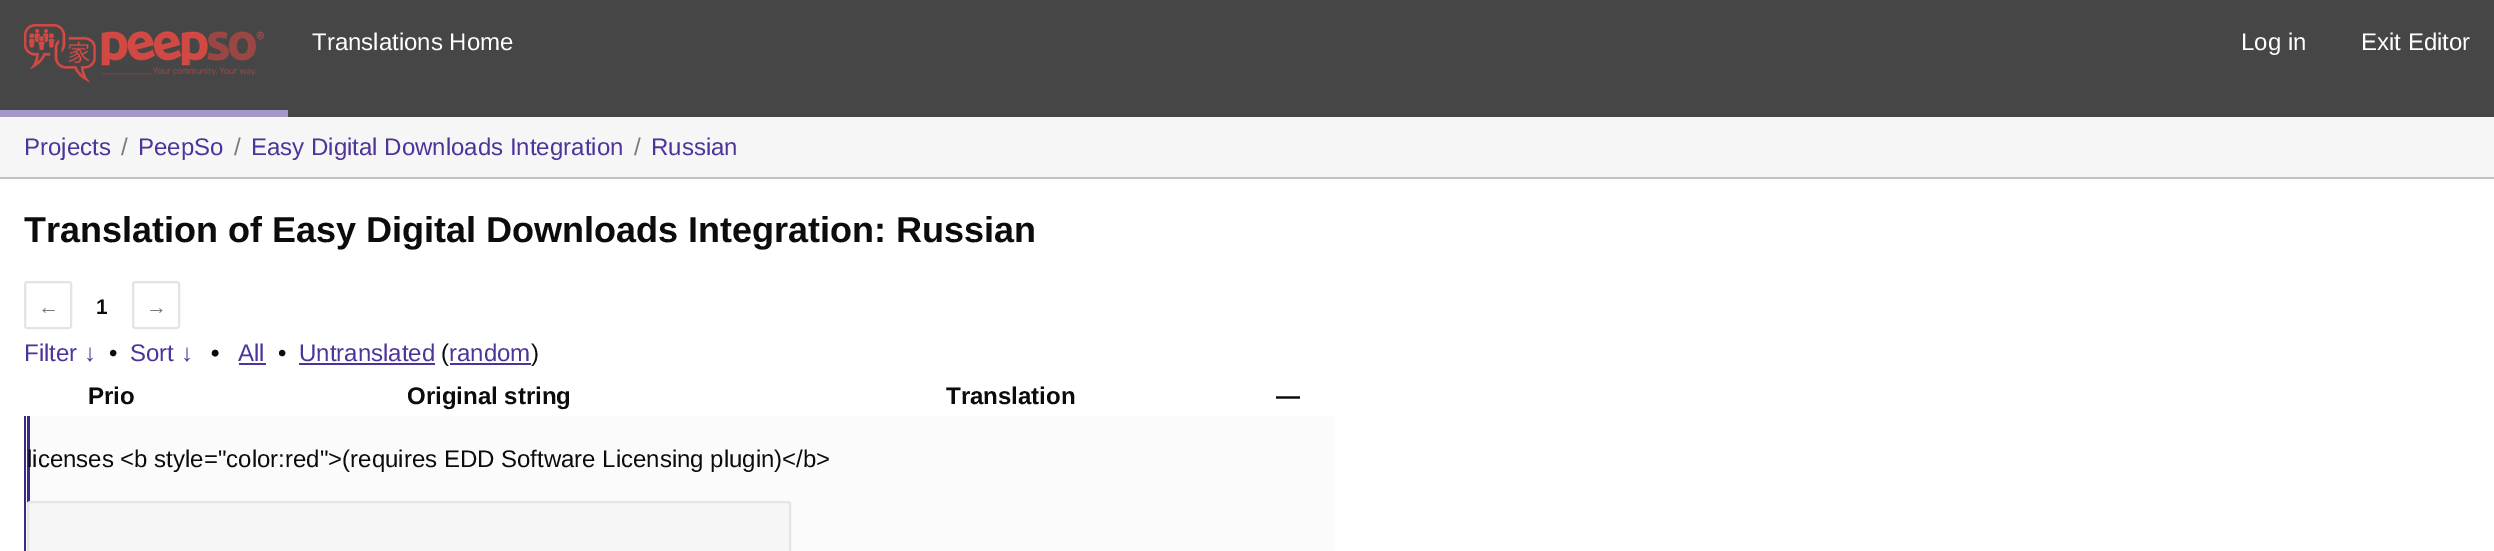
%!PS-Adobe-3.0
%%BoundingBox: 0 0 2494 551
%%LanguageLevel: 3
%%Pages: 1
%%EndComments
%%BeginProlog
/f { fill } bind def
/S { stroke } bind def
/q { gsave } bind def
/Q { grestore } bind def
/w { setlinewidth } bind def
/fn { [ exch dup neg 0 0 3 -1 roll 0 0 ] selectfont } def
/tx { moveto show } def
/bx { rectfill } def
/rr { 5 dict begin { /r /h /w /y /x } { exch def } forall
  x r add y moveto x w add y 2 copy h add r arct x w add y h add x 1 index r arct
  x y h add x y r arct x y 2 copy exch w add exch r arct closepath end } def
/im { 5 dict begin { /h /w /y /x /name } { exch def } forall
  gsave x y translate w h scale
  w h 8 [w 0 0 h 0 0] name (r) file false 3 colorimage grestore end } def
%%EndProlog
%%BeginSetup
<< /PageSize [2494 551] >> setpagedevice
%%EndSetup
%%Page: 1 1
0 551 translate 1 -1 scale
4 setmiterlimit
1 setgray
0 0 2494 551 bx
0.275 setgray
0 0 2494 117 bx
0.647 0.592 0.788 setrgbcolor
0 110 288 7 bx
(image0.raw) 24 24 240 59 im
/LiberationSans-Regular 24 fn
1 setgray
(Translations Home) 312 50 tx
(Log in) 2241 50 tx
(Exit Editor) 2361 50 tx
0.965 setgray
0 117 2494 60 bx
0.757 setgray
0 177 2494 2 bx
0.306 0.204 0.6 setrgbcolor
(Projects) 24 155 tx
0.478 setgray
(/) 121 155 tx
0.306 0.204 0.6 setrgbcolor
(PeepSo) 138 155 tx
0.478 setgray
(/) 234 155 tx
0.306 0.204 0.6 setrgbcolor
(Easy Digital Downloads Integration) 251 155 tx
0.478 setgray
(/) 634 155 tx
0.306 0.204 0.6 setrgbcolor
(Russian) 651 155 tx
/LiberationSans-Bold 36 fn
0.043 0.047 0.047 setrgbcolor
(Translation of Easy Digital Downloads Integration: Russian) 24 242 tx
0.894 setgray
2 w
25 282 46 46 2 rr S
/LiberationSans-Regular 21 fn
0.478 setgray
(←) 38 314 tx
/LiberationSans-Bold 21 fn
0.043 0.047 0.047 setrgbcolor
(1) 96 314 tx
0.894 setgray
133 282 46 46 2 rr S
/LiberationSans-Regular 21 fn
0.478 setgray
(→) 146 314 tx
/LiberationSans-Regular 24 fn
0.306 0.204 0.6 setrgbcolor
(Filter ↓) 24 361 tx
0.043 0.047 0.047 setrgbcolor
(•) 109 361 tx
0.306 0.204 0.6 setrgbcolor
(Sort ↓) 130 361 tx
/LiberationSans-Bold 24 fn
0.043 0.047 0.047 setrgbcolor
(•) 211 361 tx
/LiberationSans-Regular 24 fn
0.306 0.204 0.6 setrgbcolor
(All) 238 361 tx
239 363 27 2 bx
0.043 0.047 0.047 setrgbcolor
(•) 278 361 tx
0.306 0.204 0.6 setrgbcolor
(Untranslated) 299 361 tx
299 363 136 2 bx
0.043 0.047 0.047 setrgbcolor
(\() 441 361 tx
0.306 0.204 0.6 setrgbcolor
(random) 449 361 tx
450 363 81 2 bx
0.043 0.047 0.047 setrgbcolor
(\)) 531 361 tx
/LiberationSans-Bold 24 fn
(Prio) 88 404 tx
(Original string) 407 404 tx
(Translation) 946 404 tx
(—) 1276 404 tx
0.984 setgray
26 416 1309 135 bx
0.224 0.161 0.545 setrgbcolor
27 416 3 88 bx
24 416 2 135 bx
/LiberationSans-Regular 24 fn
0.043 0.047 0.047 setrgbcolor
(licenses <b style="color:red">\(requires EDD Software Licensing plugin\)</b>) 27 467 tx
0.965 setgray
28 502 762 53 2 rr q f Q
0.894 setgray
S
showpage
%%EOF
